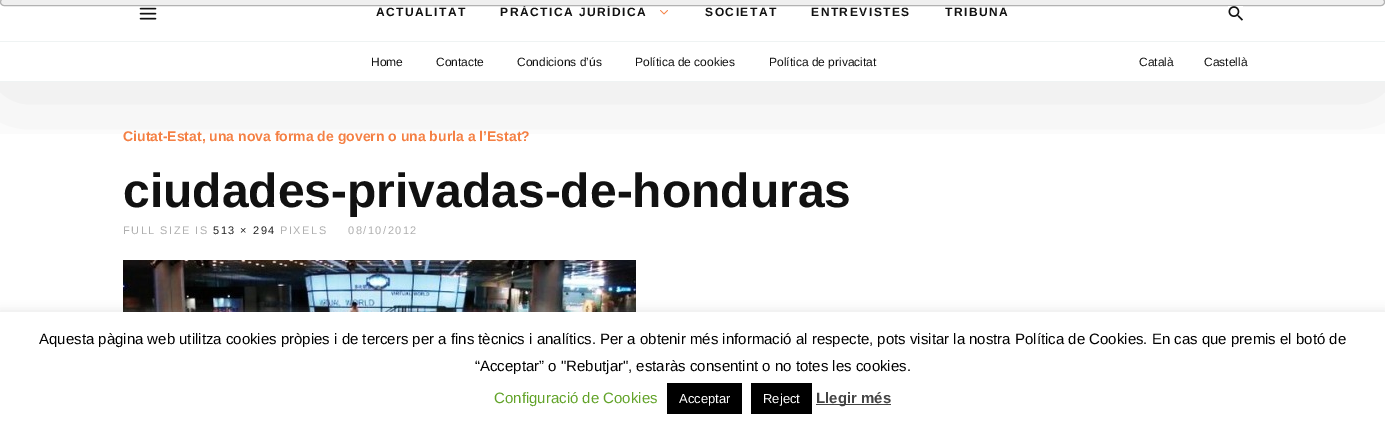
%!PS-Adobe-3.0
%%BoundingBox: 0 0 1385 426
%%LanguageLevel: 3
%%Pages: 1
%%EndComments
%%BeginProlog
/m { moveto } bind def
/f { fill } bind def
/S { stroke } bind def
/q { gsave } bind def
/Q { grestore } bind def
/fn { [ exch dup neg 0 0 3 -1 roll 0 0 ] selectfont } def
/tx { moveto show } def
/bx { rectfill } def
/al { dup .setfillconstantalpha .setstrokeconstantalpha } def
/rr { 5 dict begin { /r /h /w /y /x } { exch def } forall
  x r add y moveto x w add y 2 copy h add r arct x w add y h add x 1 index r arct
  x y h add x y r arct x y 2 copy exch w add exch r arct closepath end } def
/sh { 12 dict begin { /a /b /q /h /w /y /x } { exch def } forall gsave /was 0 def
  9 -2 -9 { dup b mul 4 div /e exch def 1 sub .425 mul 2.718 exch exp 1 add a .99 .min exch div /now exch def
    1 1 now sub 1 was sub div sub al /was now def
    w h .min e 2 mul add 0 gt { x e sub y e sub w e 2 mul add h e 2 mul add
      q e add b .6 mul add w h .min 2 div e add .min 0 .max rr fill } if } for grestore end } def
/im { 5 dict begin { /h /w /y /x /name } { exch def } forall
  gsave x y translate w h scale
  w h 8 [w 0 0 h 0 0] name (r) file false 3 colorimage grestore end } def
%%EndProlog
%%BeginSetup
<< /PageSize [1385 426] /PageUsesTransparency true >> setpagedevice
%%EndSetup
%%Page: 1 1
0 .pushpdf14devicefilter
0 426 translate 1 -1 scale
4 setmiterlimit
1 setgray
0 0 1385 426 bx
q
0 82 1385 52 rectclip
0 setgray
0 -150 1385 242 0 50 0.1 sh
Q
/LiberationSans-Bold 12 fn
0.067 setgray
500 16 m 1.5 0 (PRÀCTICA JURÍDICA) ashow
0.937 setgray
0.5 -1.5 1384 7 3.5 rr q f Q
0.698 setgray
S
0.937 0.953 0.953 setrgbcolor
0 41 1385 1 bx
(image0.raw) 139 7 18 13 im
0.067 setgray
376 16 m 1.5 0 (ACTUALITAT) ashow
(image1.raw) 660 10 8 5 im
705 16 m 1.5 0 (SOCIETAT) ashow
811 16 m 1.5 0 (ENTREVISTES) ashow
945 16 m 1.5 0 (TRIBUNA) ashow
(image2.raw) 1228 6 15 15 im
0.937 0.953 0.953 setrgbcolor
0 81 1385 1 bx
/LiberationSans-Regular 12 fn
0.067 setgray
(Home) 371 66 tx
(Contacte) 436 66 tx
(Condicions d’ús) 517 66 tx
(Política de cookies) 635 66 tx
(Política de privacitat) 769 66 tx
(Català) 1139 66 tx
(Castellà) 1204 66 tx
/LiberationSans-Bold 14 fn
0.957 0.502 0.267 setrgbcolor
(Ciutat-Estat, una nova forma de govern o una burla a l’Estat?) 123 141 tx
/LiberationSans-Bold 48 fn
0.067 setgray
(ciudades-privadas-de-honduras) 123 207 tx
/LiberationSans-Regular 11 fn
0.686 setgray
123 234 m 1.5 0 (FULL SIZE IS) ashow
0.129 setgray
213 234 m 1.5 0 (513 × 294) ashow
0.686 setgray
280 234 m 1.5 0 (PIXELS) ashow
348 234 m 1.5 0 (08/10/2012) ashow
(image3.raw) 123 260 513 52 im
0.675 0.671 0.671 setrgbcolor
0 311 1385 114 0 5 0.3 sh
1 setgray
0 312 1385 114 bx
/LiberationSans-Regular 15 fn
0 setgray
(Aquesta pàgina web utilitza cookies pròpies i de tercers per a fins tècnics i analítics. Per a obtenir més informació al respecte, pots visitar la nostra Política de Cookies. En cas que premis el botó de) 39 344 tx
(“Acceptar” o "Rebutjar", estaràs consentint o no totes les cookies.) 475 371 tx
0.384 0.639 0.161 setrgbcolor
(Configuració de Cookies) 494 403 tx
0 setgray
667 383 75 31 bx
/LiberationSans-Regular 13 fn
1 setgray
(Acceptar) 679 403 tx
0 setgray
751 383 61 31 bx
1 setgray
(Reject) 763 403 tx
0.267 setgray
816 404 75 1 bx
/LiberationSans-Bold 15 fn
(Llegir més) 816 403 tx
.poppdf14devicefilter showpage
%%EOF
